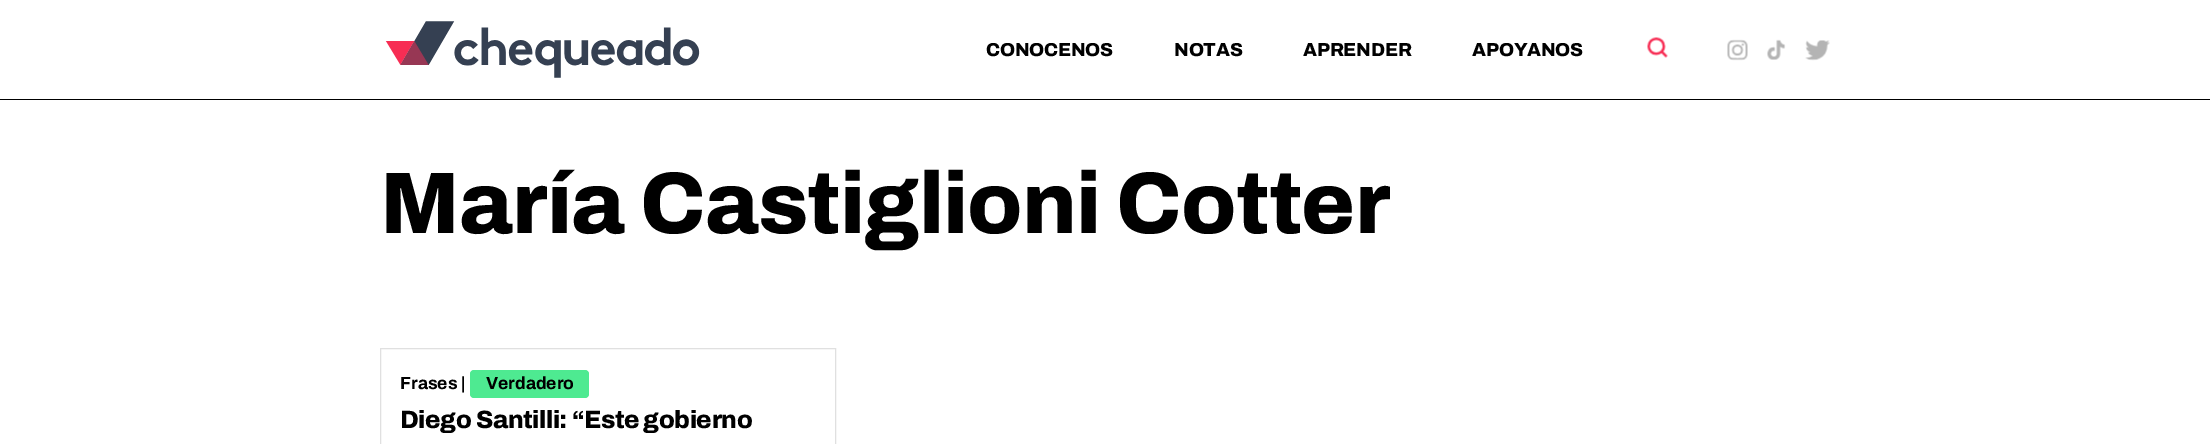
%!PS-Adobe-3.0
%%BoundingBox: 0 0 2210 444
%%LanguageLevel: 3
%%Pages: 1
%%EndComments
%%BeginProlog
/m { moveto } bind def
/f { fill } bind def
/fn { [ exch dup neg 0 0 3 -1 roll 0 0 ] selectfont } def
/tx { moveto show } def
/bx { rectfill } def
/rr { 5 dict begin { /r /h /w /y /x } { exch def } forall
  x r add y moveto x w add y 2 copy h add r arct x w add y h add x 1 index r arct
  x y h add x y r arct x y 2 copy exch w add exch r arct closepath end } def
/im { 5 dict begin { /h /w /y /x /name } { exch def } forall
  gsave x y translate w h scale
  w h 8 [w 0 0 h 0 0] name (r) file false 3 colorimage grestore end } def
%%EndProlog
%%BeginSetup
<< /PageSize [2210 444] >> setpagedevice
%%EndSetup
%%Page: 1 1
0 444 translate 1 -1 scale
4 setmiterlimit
1 setgray
0 0 2210 444 bx
0 setgray
0 99 2210 1 bx
(image0.raw) 385 21 315 57 im
/Archivo-ExtraBold 18.75 fn
986 56 m -0.25 0 (CONOCENOS) ashow
1174 56 m -0.25 0 (NOTAS) ashow
1303 56 m -0.25 0 (APRENDER) ashow
1472 56 m -0.25 0 (APOYANOS) ashow
(image1.raw) 1647 37 21 21 im
(image2.raw) 1727 39 21 22 im
(image3.raw) 1767 39 19 21 im
(image4.raw) 1805 40 25 21 im
/Archivo-ExtraBold 87.5 fn
380 233 m -0.9 0 (María Castiglioni Cotter) ashow
0.878 setgray
380.5 348.5 455 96 rectstroke
/Archivo-Bold 17.5 fn
0 setgray
(Frases) 400 389 tx
(|) 461 389 tx
0.306 0.918 0.569 setrgbcolor
470 370 119 28 4 rr f
0 setgray
(Verdadero) 486 389 tx
/Archivo-ExtraBold 25 fn
400 428 m -0.4 0 (Diego Santilli: “Este gobierno) ashow
showpage
%%EOF
